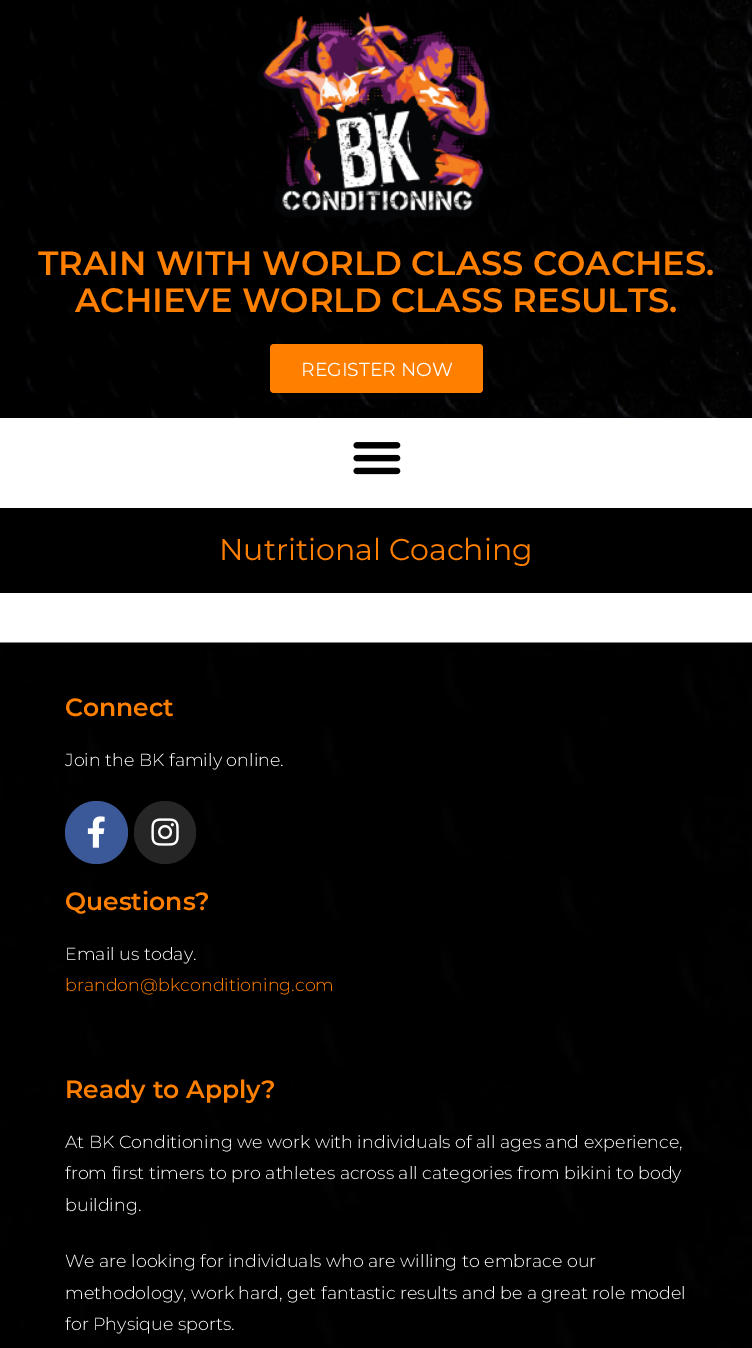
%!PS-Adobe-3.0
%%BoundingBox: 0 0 752 1348
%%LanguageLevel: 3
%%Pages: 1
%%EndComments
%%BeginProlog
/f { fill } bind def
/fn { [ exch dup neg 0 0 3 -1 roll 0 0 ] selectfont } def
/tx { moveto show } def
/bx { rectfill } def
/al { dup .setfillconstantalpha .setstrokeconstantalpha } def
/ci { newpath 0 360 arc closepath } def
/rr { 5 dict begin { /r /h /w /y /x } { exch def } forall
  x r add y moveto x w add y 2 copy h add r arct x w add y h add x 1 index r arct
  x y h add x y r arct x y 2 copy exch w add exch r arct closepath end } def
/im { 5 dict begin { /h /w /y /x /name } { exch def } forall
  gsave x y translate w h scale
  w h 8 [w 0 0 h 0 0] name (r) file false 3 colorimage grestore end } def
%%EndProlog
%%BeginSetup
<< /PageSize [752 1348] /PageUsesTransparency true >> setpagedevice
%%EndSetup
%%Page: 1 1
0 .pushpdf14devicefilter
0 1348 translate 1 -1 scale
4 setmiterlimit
1 setgray
0 0 752 1348 bx
(image0.raw) 0 0 752 418 im
0.56 al
0 setgray
42 0 673 393 bx
1 al
(image1.raw) 257 12 238 222 im
/Montserrat-SemiBold 33.75 fn
1 0.498 0 setrgbcolor
(TRAIN WITH WORLD CLASS COACHES.) 38 275 tx
(ACHIEVE WORLD CLASS RESULTS.) 75 312 tx
270 344 213 49 4 rr f
/Montserrat-Regular 18.75 fn
1 setgray
(REGISTER NOW) 301 376 tx
(image2.raw) 353 442 48 33 im
0 setgray
0 508 752 85 bx
/Montserrat-Regular 30 fn
1 0.498 0 setrgbcolor
(Nutritional Coaching) 219 560 tx
(image3.raw) 0 642 752 706 im
0.65 al
0 setgray
83 656 622 692 bx
/Montserrat-SemiBold 25 fn
1 al
1 0.498 0 setrgbcolor
(Connect) 65 716 tx
/Montserrat-Light 17.5 fn
1 setgray
(Join the BK family online.) 65 766 tx
0.231 0.349 0.596 setrgbcolor
96.5 832.5 31.5 ci f
(image4.raw) 87 816 18 32 im
0.149 setgray
134 801 62 63 31 rr f
(image5.raw) 151 818 28 28 im
/Montserrat-SemiBold 25 fn
1 0.498 0 setrgbcolor
(Questions?) 65 910 tx
/Montserrat-Light 17.5 fn
1 setgray
(Email us today.) 65 960 tx
1 0.498 0 setrgbcolor
(brandon@bkconditioning.com) 65 991 tx
/Montserrat-SemiBold 25 fn
(Ready to Apply?) 65 1098 tx
/Montserrat-Light 17.5 fn
1 setgray
(At BK Conditioning we work with individuals of all ages and experience,) 65 1148 tx
(from first timers to pro athletes across all categories from bikini to body) 65 1179 tx
(building.) 65 1211 tx
(We are looking for individuals who are willing to embrace our) 65 1267 tx
(methodology, work hard, get fantastic results and be a great role model) 65 1299 tx
(for Physique sports.) 65 1330 tx
.poppdf14devicefilter showpage
%%EOF
